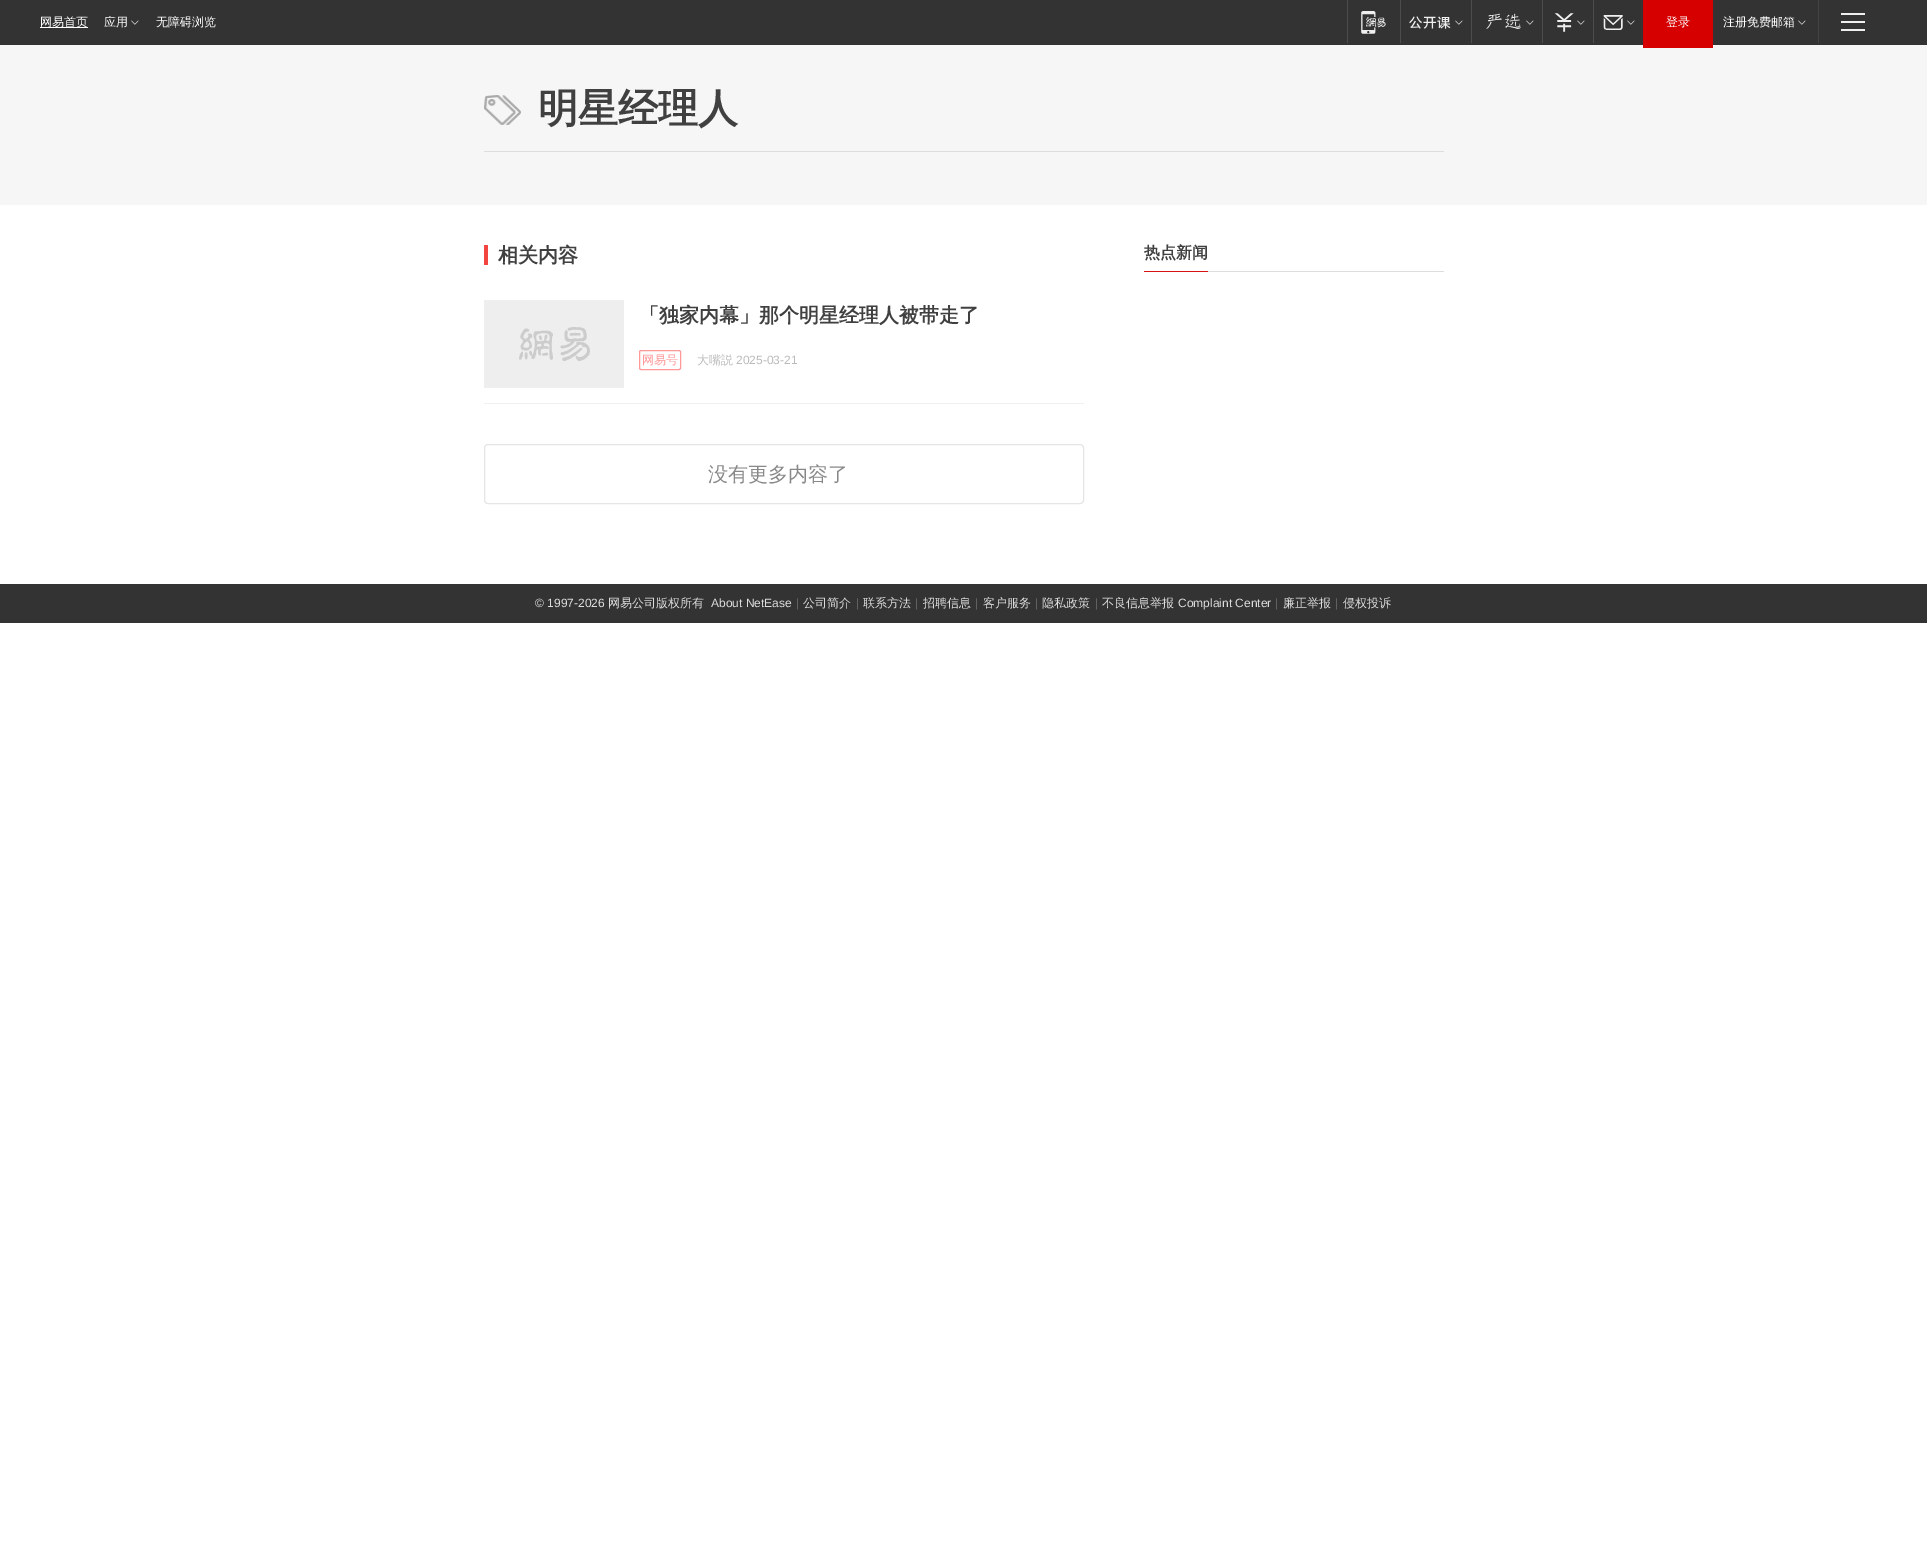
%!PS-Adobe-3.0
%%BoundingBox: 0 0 1927 1562
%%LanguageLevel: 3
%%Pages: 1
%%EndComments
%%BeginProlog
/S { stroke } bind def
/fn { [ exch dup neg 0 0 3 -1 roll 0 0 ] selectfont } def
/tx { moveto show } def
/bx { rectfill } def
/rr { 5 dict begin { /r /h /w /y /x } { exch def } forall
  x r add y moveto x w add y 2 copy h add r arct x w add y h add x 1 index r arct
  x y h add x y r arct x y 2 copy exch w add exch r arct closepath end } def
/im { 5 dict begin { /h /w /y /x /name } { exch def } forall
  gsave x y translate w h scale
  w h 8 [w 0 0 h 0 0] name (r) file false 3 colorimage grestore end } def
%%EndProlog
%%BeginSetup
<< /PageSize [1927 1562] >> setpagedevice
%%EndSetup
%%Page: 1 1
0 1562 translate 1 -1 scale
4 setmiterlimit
1 setgray
0 0 1927 1562 bx
0.2 setgray
0 0 1927 45 bx
1 setgray
40 27 48 1 bx
/WenQuanYiZenHei-Medium 12 fn
(网易首页) 40 26 tx
(应用) 104 26 tx
(image0.raw) 131 20 8 5 im
(无障碍浏览) 156 26 tx
0.302 setgray
1347 0 1 43 bx
(image1.raw) 1361 11 25 23 im
1400 0 1 43 bx
(image2.raw) 1409 16 42 13 im
(image0.raw) 1455 20 8 5 im
1471 0 1 43 bx
(image3.raw) 1486 13 35 16 im
(image0.raw) 1526 20 8 5 im
1542 0 1 43 bx
(image4.raw) 1554 13 20 19 im
(image0.raw) 1577 20 8 5 im
1593 0 1 43 bx
(image5.raw) 1603 15 20 15 im
(image0.raw) 1627 20 8 5 im
0.965 setgray
0 45 1927 160 bx
0.839 0 0 setrgbcolor
1643 0 70 48 bx
1 setgray
(登录) 1666 26 tx
(注册免费邮箱) 1723 26 tx
(image0.raw) 1798 20 8 5 im
0.267 setgray
1818 0 1 43 bx
0.937 setgray
1841 13 24 2 bx
1841 21 24 2 bx
1841 29 24 2 bx
(image6.raw) 484 95 37 30 im
0.867 setgray
484 151 960 1 bx
/WenQuanYiZenHei-Bold 40 fn
0.251 setgray
(明星经理人) 538 122 tx
0.953 0.271 0.251 setrgbcolor
484 245 4 20 bx
/WenQuanYiZenHei-Bold 20 fn
0.251 setgray
(相关内容) 498 262 tx
0.941 setgray
484 403 600 1 bx
(image7.raw) 484 300 140 88 im
0.251 setgray
(「独家内幕」那个明星经理人被带走了) 639 322 tx
1 0.6 0.6 setrgbcolor
639.5 350.5 41 19 1.5 rr S
/WenQuanYiZenHei-Medium 12 fn
(网易号) 642 364 tx
0.733 setgray
(大嘴説) 697 364 tx
/LiberationSans-Regular 12 fn
(2025-03-21) 736 364 tx
0.898 setgray
484.5 444.5 599 59 3.5 rr S
/WenQuanYiZenHei-Medium 20 fn
0.533 setgray
(没有更多内容了) 708 481 tx
0.867 setgray
1208 271 236 1 bx
/WenQuanYiZenHei-Bold 16 fn
0.251 setgray
(热点新闻) 1144 258 tx
0.859 0.063 0.067 setrgbcolor
1144 271 64 1 bx
0.2 setgray
0 584 1927 39 bx
/LiberationSans-Regular 12 fn
0.867 setgray
(© 1997-2026) 535 607 tx
/WenQuanYiZenHei-Medium 12 fn
(网易公司版权所有) 608 607 tx
/LiberationSans-Regular 12 fn
(About NetEase) 711 607 tx
0.38 setgray
(|) 796 607 tx
/WenQuanYiZenHei-Medium 12 fn
0.867 setgray
(公司简介) 803 607 tx
/LiberationSans-Regular 12 fn
0.38 setgray
(|) 856 607 tx
/WenQuanYiZenHei-Medium 12 fn
0.867 setgray
(联系方法) 863 607 tx
/LiberationSans-Regular 12 fn
0.38 setgray
(|) 915 607 tx
/WenQuanYiZenHei-Medium 12 fn
0.867 setgray
(招聘信息) 923 607 tx
/LiberationSans-Regular 12 fn
0.38 setgray
(|) 975 607 tx
/WenQuanYiZenHei-Medium 12 fn
0.867 setgray
(客户服务) 983 607 tx
/LiberationSans-Regular 12 fn
0.38 setgray
(|) 1035 607 tx
/WenQuanYiZenHei-Medium 12 fn
0.867 setgray
(隐私政策) 1042 607 tx
/LiberationSans-Regular 12 fn
0.38 setgray
(|) 1095 607 tx
/WenQuanYiZenHei-Medium 12 fn
0.867 setgray
(不良信息举报) 1102 607 tx
/LiberationSans-Regular 12 fn
(Complaint Center) 1178 607 tx
0.38 setgray
(|) 1275 607 tx
/WenQuanYiZenHei-Medium 12 fn
0.867 setgray
(廉正举报) 1283 607 tx
/LiberationSans-Regular 12 fn
0.38 setgray
(|) 1335 607 tx
/WenQuanYiZenHei-Medium 12 fn
0.867 setgray
(侵权投诉) 1343 607 tx
showpage
%%EOF
